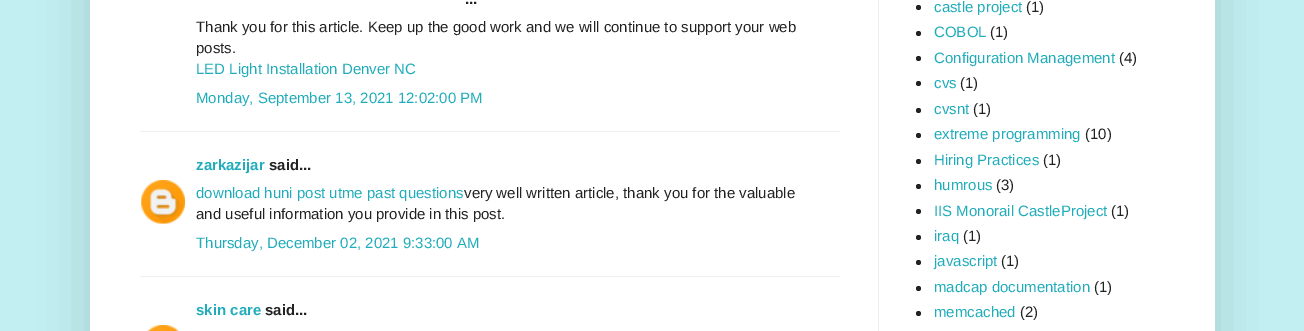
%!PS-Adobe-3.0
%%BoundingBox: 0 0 1304 331
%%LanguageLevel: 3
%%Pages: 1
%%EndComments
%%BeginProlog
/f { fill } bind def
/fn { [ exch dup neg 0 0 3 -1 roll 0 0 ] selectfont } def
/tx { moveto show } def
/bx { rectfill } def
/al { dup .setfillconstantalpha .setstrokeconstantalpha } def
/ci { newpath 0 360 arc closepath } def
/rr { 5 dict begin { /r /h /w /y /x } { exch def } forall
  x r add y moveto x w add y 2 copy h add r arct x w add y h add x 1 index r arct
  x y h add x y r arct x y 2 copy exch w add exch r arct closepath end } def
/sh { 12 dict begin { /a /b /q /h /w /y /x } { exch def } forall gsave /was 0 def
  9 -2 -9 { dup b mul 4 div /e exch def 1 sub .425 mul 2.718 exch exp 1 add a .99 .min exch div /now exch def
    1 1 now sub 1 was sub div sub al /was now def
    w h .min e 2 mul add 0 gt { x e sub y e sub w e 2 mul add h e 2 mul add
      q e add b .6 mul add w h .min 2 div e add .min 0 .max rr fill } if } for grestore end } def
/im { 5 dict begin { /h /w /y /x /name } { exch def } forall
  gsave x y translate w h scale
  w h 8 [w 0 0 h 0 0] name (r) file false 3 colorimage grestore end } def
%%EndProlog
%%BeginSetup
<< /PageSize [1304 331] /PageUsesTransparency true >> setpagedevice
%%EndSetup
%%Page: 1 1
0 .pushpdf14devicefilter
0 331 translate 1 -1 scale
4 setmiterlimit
0.761 0.937 0.949 setrgbcolor
0 0 1304 331 bx
0 setgray
90 -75 1125 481 0 25 0.15 sh
1 setgray
90 0 1125 331 bx
0.933 setgray
878 0 1 331 bx
/LiberationSans-Bold 15 fn
0.133 setgray
(...) 465 4 tx
/LiberationSans-Regular 15 fn
(Thank you for this article. Keep up the good work and we will continue to support your web) 196 32 tx
(posts.) 196 53 tx
0.129 0.675 0.733 setrgbcolor
(LED Light Installation Denver NC) 196 74 tx
(Monday, September 13, 2021 12:02:00 PM) 196 103 tx
0.933 setgray
140 131 700 1 bx
/LiberationSans-Bold 15 fn
0.129 0.675 0.733 setrgbcolor
(zarkazijar) 196 170 tx
0.133 setgray
(said...) 269 170 tx
(image0.raw) 141 180 44 44 im
/LiberationSans-Regular 15 fn
0.129 0.675 0.733 setrgbcolor
(download huni post utme past questions) 196 198 tx
0.133 setgray
(very well written article, thank you for the valuable) 464 198 tx
(and useful information you provide in this post.) 196 219 tx
0.129 0.675 0.733 setrgbcolor
(Thursday, December 02, 2021 9:33:00 AM) 196 248 tx
0.933 setgray
140 276 700 1 bx
/LiberationSans-Bold 15 fn
0.129 0.675 0.733 setrgbcolor
(skin care) 196 315 tx
0.133 setgray
(said...) 265 315 tx
(image1.raw) 147 325 32 6 im
918.5 7.5 2.5 ci f
/LiberationSans-Regular 15 fn
0.129 0.675 0.733 setrgbcolor
(castle project) 934 12 tx
0.133 setgray
(\(1\)) 1026 12 tx
918.5 33.5 2.5 ci f
0.129 0.675 0.733 setrgbcolor
(COBOL) 934 37 tx
0.133 setgray
(\(1\)) 990 37 tx
918.5 58.5 2.5 ci f
0.129 0.675 0.733 setrgbcolor
(Configuration Management) 934 63 tx
0.133 setgray
(\(4\)) 1119 63 tx
918.5 83.5 2.5 ci f
0.129 0.675 0.733 setrgbcolor
(cvs) 934 88 tx
0.133 setgray
(\(1\)) 960 88 tx
918.5 110.5 2.5 ci f
0.129 0.675 0.733 setrgbcolor
(cvsnt) 934 114 tx
0.133 setgray
(\(1\)) 973 114 tx
918.5 135.5 2.5 ci f
0.129 0.675 0.733 setrgbcolor
(extreme programming) 934 139 tx
0.133 setgray
(\(10\)) 1085 139 tx
918.5 161.5 2.5 ci f
0.129 0.675 0.733 setrgbcolor
(Hiring Practices) 934 165 tx
0.133 setgray
(\(1\)) 1043 165 tx
918.5 186.5 2.5 ci f
0.129 0.675 0.733 setrgbcolor
(humrous) 934 190 tx
0.133 setgray
(\(3\)) 996 190 tx
918.5 211.5 2.5 ci f
0.129 0.675 0.733 setrgbcolor
(IIS Monorail CastleProject) 934 216 tx
0.133 setgray
(\(1\)) 1111 216 tx
918.5 237.5 2.5 ci f
0.129 0.675 0.733 setrgbcolor
(iraq) 934 241 tx
0.133 setgray
(\(1\)) 963 241 tx
918.5 262.5 2.5 ci f
0.129 0.675 0.733 setrgbcolor
(javascript) 934 266 tx
0.133 setgray
(\(1\)) 1001 266 tx
918.5 288.5 2.5 ci f
0.129 0.675 0.733 setrgbcolor
(madcap documentation) 934 292 tx
0.133 setgray
(\(1\)) 1094 292 tx
918.5 313.5 2.5 ci f
0.129 0.675 0.733 setrgbcolor
(memcached) 934 317 tx
0.133 setgray
(\(2\)) 1020 317 tx
.poppdf14devicefilter showpage
%%EOF
